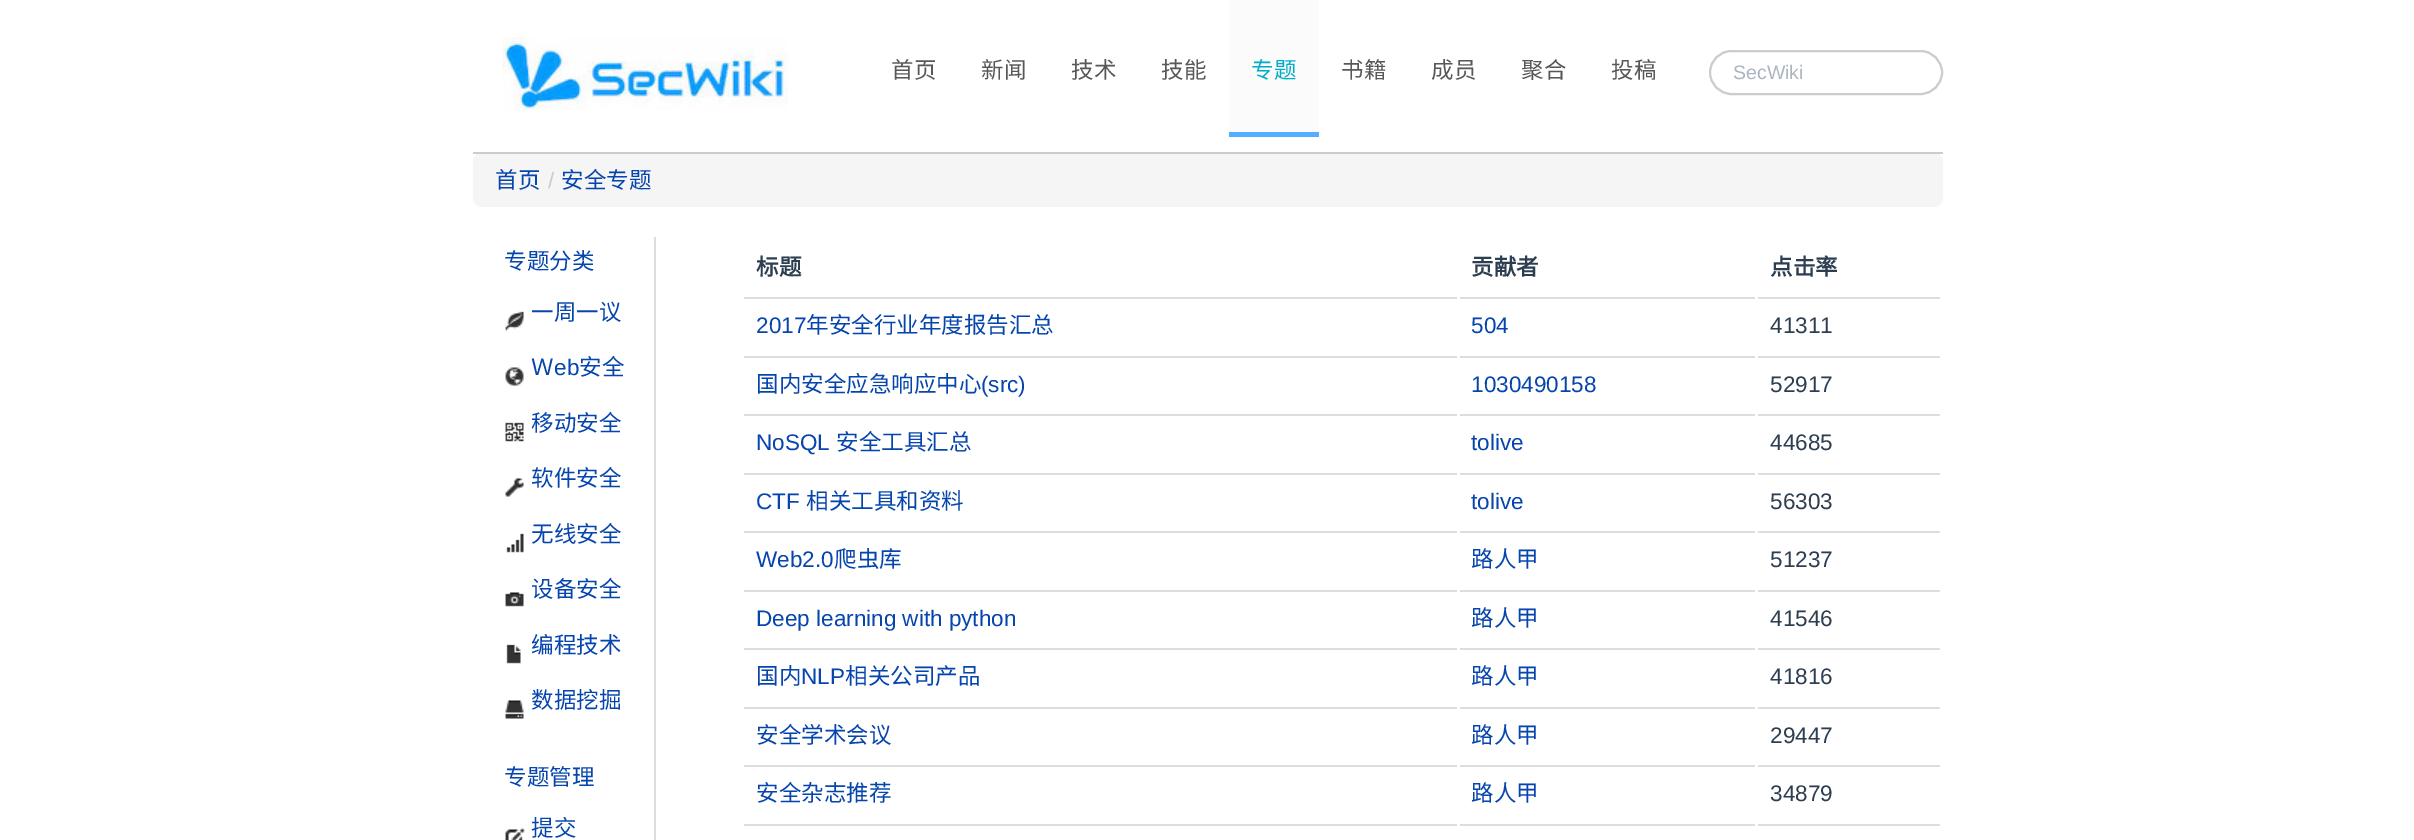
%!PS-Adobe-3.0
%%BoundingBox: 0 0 2414 840
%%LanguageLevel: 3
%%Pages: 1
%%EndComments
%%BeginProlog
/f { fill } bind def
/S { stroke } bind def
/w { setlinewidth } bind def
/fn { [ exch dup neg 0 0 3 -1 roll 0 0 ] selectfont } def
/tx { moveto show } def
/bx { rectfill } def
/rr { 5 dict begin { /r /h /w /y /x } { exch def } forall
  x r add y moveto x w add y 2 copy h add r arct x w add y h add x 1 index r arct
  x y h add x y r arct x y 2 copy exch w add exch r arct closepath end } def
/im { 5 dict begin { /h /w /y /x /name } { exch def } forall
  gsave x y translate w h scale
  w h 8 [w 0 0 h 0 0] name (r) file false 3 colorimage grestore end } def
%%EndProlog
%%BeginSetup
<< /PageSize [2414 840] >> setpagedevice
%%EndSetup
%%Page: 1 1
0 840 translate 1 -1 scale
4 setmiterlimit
1 setgray
0 0 2414 840 bx
0.961 setgray
473 153 1470 54 9 rr f
0.8 setgray
473 152 1470 2 bx
(image0.raw) 502 37 286 73 im
/NotoSansCJKSC-Regular 22.5 fn
0.345 setgray
(首页) 891 78 tx
(新闻) 981 78 tx
(技术) 1071 78 tx
(技能) 1161 78 tx
0.984 setgray
1229 0 90 132 bx
0.322 0.682 1 setrgbcolor
1229 132 90 5 bx
0 0.682 0.784 setrgbcolor
(专题) 1251 78 tx
0.345 setgray
(书籍) 1341 78 tx
(成员) 1431 78 tx
(聚合) 1521 78 tx
(投稿) 1611 78 tx
0.8 setgray
2 w
1710 51 232 43 21.5 rr S
/LiberationSans-Regular 19.5 fn
0.675 0.714 0.753 setrgbcolor
(SecWiki) 1733 79 tx
/NotoSansCJKSC-Regular 22.5 fn
0.024 0.271 0.678 setrgbcolor
(首页) 495 188 tx
/LiberationSans-Regular 22.5 fn
0.8 setgray
(/) 548 188 tx
/NotoSansCJKSC-Regular 22.5 fn
0.024 0.271 0.678 setrgbcolor
(安全专题) 561 188 tx
0.867 setgray
654 237 2 603 bx
0.024 0.271 0.678 setrgbcolor
(专题分类) 504 269 tx
(image1.raw) 505 311 19 21 im
(一周一议) 531 320 tx
(image2.raw) 505 367 19 19 im
(Ｗ) 531 375 tx
/LiberationSans-Regular 22.5 fn
(eb) 554 375 tx
/NotoSansCJKSC-Regular 22.5 fn
(安全) 579 375 tx
(image3.raw) 505 422 19 20 im
(移动安全) 531 431 tx
(image4.raw) 505 478 19 19 im
(软件安全) 531 486 tx
(image5.raw) 506 533 18 20 im
(无线安全) 531 542 tx
(image6.raw) 505 592 19 15 im
(设备安全) 531 597 tx
(image7.raw) 506 644 15 20 im
(编程技术) 531 653 tx
(image8.raw) 505 700 19 19 im
(数据挖掘) 531 708 tx
(专题管理) 504 785 tx
(image9.raw) 505 827 20 13 im
(提交) 531 836 tx
/NotoSansCJKSC-Bold 22.5 fn
0.173 0.243 0.314 setrgbcolor
(标题) 756 275 tx
(贡献者) 1471 275 tx
(点击率) 1770 275 tx
0.867 setgray
744 297 713 2 bx
/LiberationSans-Regular 22.5 fn
0.024 0.271 0.678 setrgbcolor
(2017) 756 333 tx
/NotoSansCJKSC-Regular 22.5 fn
(年安全行业年度报告汇总) 806 333 tx
0.867 setgray
1460 297 295 2 bx
/LiberationSans-Regular 22.5 fn
0.024 0.271 0.678 setrgbcolor
(504) 1471 333 tx
0.867 setgray
1758 297 182 2 bx
0.173 0.243 0.314 setrgbcolor
(41311) 1770 333 tx
0.867 setgray
744 356 713 2 bx
/NotoSansCJKSC-Regular 22.5 fn
0.024 0.271 0.678 setrgbcolor
(国内安全应急响应中心) 756 392 tx
/LiberationSans-Regular 22.5 fn
(\(src\)) 981 392 tx
0.867 setgray
1460 356 295 2 bx
0.024 0.271 0.678 setrgbcolor
(1030490158) 1471 392 tx
0.867 setgray
1758 356 182 2 bx
0.173 0.243 0.314 setrgbcolor
(52917) 1770 392 tx
0.867 setgray
744 414 713 2 bx
0.024 0.271 0.678 setrgbcolor
(NoSQL) 756 450 tx
/NotoSansCJKSC-Regular 22.5 fn
(安全工具汇总) 836 450 tx
0.867 setgray
1460 414 295 2 bx
/LiberationSans-Regular 22.5 fn
0.024 0.271 0.678 setrgbcolor
(tolive) 1471 450 tx
0.867 setgray
1758 414 182 2 bx
0.173 0.243 0.314 setrgbcolor
(44685) 1770 450 tx
0.867 setgray
744 473 713 2 bx
0.024 0.271 0.678 setrgbcolor
(CTF) 756 509 tx
/NotoSansCJKSC-Regular 22.5 fn
(相关工具和资料) 806 509 tx
0.867 setgray
1460 473 295 2 bx
/LiberationSans-Regular 22.5 fn
0.024 0.271 0.678 setrgbcolor
(tolive) 1471 509 tx
0.867 setgray
1758 473 182 2 bx
0.173 0.243 0.314 setrgbcolor
(56303) 1770 509 tx
0.867 setgray
744 531 713 2 bx
0.024 0.271 0.678 setrgbcolor
(Web2.0) 756 567 tx
/NotoSansCJKSC-Regular 22.5 fn
(爬虫库) 834 567 tx
0.867 setgray
1460 531 295 2 bx
0.024 0.271 0.678 setrgbcolor
(路人甲) 1471 567 tx
0.867 setgray
1758 531 182 2 bx
/LiberationSans-Regular 22.5 fn
0.173 0.243 0.314 setrgbcolor
(51237) 1770 567 tx
0.867 setgray
744 590 713 2 bx
0.024 0.271 0.678 setrgbcolor
(Deep learning with python) 756 626 tx
0.867 setgray
1460 590 295 2 bx
/NotoSansCJKSC-Regular 22.5 fn
0.024 0.271 0.678 setrgbcolor
(路人甲) 1471 626 tx
0.867 setgray
1758 590 182 2 bx
/LiberationSans-Regular 22.5 fn
0.173 0.243 0.314 setrgbcolor
(41546) 1770 626 tx
0.867 setgray
744 648 713 2 bx
/NotoSansCJKSC-Regular 22.5 fn
0.024 0.271 0.678 setrgbcolor
(国内) 756 684 tx
/LiberationSans-Regular 22.5 fn
(NLP) 801 684 tx
/NotoSansCJKSC-Regular 22.5 fn
(相关公司产品) 845 684 tx
0.867 setgray
1460 648 295 2 bx
0.024 0.271 0.678 setrgbcolor
(路人甲) 1471 684 tx
0.867 setgray
1758 648 182 2 bx
/LiberationSans-Regular 22.5 fn
0.173 0.243 0.314 setrgbcolor
(41816) 1770 684 tx
0.867 setgray
744 707 713 2 bx
/NotoSansCJKSC-Regular 22.5 fn
0.024 0.271 0.678 setrgbcolor
(安全学术会议) 756 743 tx
0.867 setgray
1460 707 295 2 bx
0.024 0.271 0.678 setrgbcolor
(路人甲) 1471 743 tx
0.867 setgray
1758 707 182 2 bx
/LiberationSans-Regular 22.5 fn
0.173 0.243 0.314 setrgbcolor
(29447) 1770 743 tx
0.867 setgray
744 765 713 2 bx
/NotoSansCJKSC-Regular 22.5 fn
0.024 0.271 0.678 setrgbcolor
(安全杂志推荐) 756 801 tx
0.867 setgray
1460 765 295 2 bx
0.024 0.271 0.678 setrgbcolor
(路人甲) 1471 801 tx
0.867 setgray
1758 765 182 2 bx
/LiberationSans-Regular 22.5 fn
0.173 0.243 0.314 setrgbcolor
(34879) 1770 801 tx
0.867 setgray
744 824 713 2 bx
1460 824 295 2 bx
1758 824 182 2 bx
showpage
%%EOF
